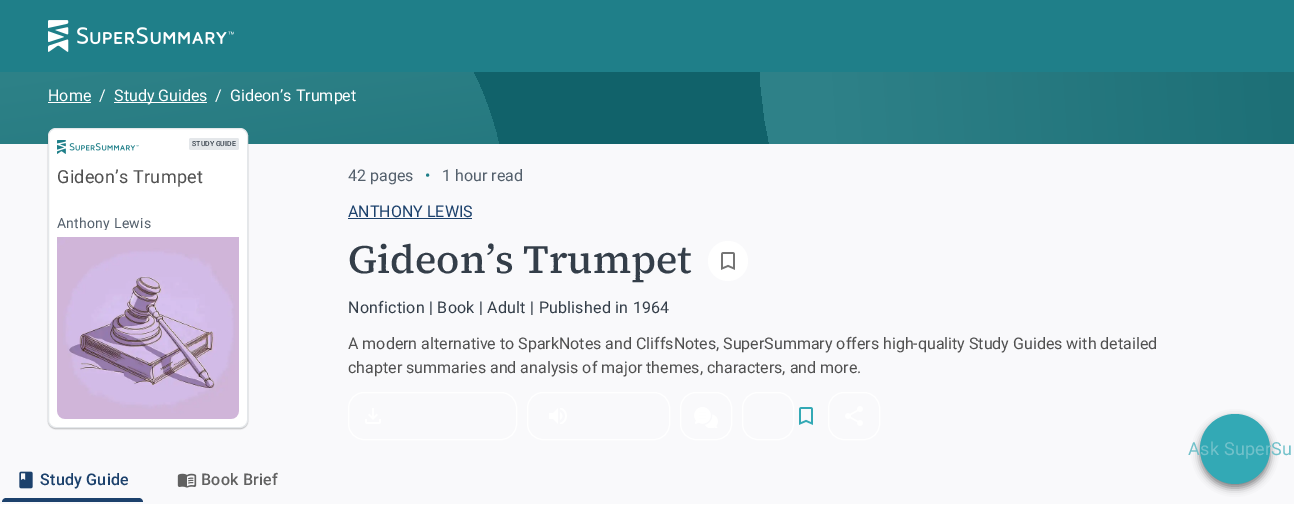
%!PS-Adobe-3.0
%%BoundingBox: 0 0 1294 508
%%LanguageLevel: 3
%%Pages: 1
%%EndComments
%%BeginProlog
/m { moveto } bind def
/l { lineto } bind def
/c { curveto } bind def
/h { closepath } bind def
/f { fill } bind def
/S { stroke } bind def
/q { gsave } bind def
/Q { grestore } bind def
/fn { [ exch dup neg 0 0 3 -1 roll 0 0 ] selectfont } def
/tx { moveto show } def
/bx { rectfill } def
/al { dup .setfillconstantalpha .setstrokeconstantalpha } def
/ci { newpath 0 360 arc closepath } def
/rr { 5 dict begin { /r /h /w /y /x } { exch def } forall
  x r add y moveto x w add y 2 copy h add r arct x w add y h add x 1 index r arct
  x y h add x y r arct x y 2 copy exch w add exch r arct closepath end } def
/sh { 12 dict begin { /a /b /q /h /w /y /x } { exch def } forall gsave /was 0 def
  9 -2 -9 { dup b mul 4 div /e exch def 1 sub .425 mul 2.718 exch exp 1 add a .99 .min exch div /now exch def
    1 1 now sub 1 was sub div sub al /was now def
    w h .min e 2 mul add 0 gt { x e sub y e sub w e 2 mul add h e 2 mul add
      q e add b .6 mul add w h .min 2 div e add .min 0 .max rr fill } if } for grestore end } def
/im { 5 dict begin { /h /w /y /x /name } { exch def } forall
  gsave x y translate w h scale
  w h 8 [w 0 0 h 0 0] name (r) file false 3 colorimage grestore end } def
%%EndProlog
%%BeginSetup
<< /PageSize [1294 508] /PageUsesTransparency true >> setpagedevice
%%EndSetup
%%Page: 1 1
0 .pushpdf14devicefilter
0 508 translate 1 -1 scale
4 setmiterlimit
0.067 0.384 0.416 setrgbcolor
0 0 1294 508 bx
0.122 0.498 0.537 setrgbcolor
0 0 1294 72 bx
(image0.raw) 48 20 186 32 im
q 0 72 m 0 364 l 6 376 14 388 21 399 c 451 399 l 517 304 525 176 473 72 c h clip newpath
<< /ShadingType 2 /ColorSpace /DeviceRGB /Coords [154 -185 253 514] /Extend [true true] /Function << /FunctionType 2 /Domain [0 1] /C0 [0.239 0.569 0.588] /C1 [0.067 0.392 0.424] /N 1 >> >> shfill Q
q 1294 399 m 1294 72 l 760 72 l 767 197 818 308 889 399 c h clip newpath
<< /ShadingType 2 /ColorSpace /DeviceRGB /Coords [841 212 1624 158] /Extend [true true] /Function << /FunctionType 2 /Domain [0 1] /C0 [0.18 0.506 0.533] /C1 [0.067 0.384 0.416] /N 1 >> >> shfill Q
/Roboto-Regular 16 fn
1 setgray
(Home) 48 101 tx
48 102 43 1 bx
(/) 99 101 tx
114 102 93 1 bx
(Study Guides) 114 101 tx
(/) 215 101 tx
(Gideon’s Trumpet) 230 101 tx
0.976 0.976 0.984 setrgbcolor
0 144 1294 360 bx
0 setgray
48 129 200 300 8 0.5 0.25 sh
1 setgray
48.5 128.5 199 299 7.5 rr q f Q
0.894 0.906 0.918 setrgbcolor
S
(image1.raw) 57 140 82 14 im
189 138 50 12 2 rr f
/Roboto-Medium 7 fn
0.204 0.243 0.286 setrgbcolor
(STUDY GUIDE) 192 146 tx
/Roboto-Regular 18 fn
0.314 setgray
57 183 m 0.25 0 (Gideon’s Trumpet) ashow
q
57 216 182 14 rectclip
/Roboto-Regular 14 fn
0.329 0.376 0.424 setrgbcolor
57 228 m 0.25 0 (Anthony Lewis) ashow
Q
(image2.raw) 57 237 182 182 im
/Roboto-Regular 16 fn
0.329 0.376 0.424 setrgbcolor
(42 pages) 348 181 tx
0.122 0.498 0.537 setrgbcolor
(•) 425 181 tx
0.329 0.376 0.424 setrgbcolor
(1 hour read) 442 181 tx
0.11 0.255 0.424 setrgbcolor
(ANTHONY LEWIS) 348 217 tx
348 218 124 1 bx
/SourceSerif4-Medium 40 fn
0.204 0.243 0.286 setrgbcolor
(Gideon’s Trumpet) 348 273 tx
1 setgray
728 261 20 ci f
(image3.raw) 721 252 14 18 im
/Roboto-Regular 16 fn
0.204 0.243 0.286 setrgbcolor
348 313 m 0.25 0 (Nonfiction | Book | Adult | Published in 1964) ashow
0.314 setgray
(A modern alternative to SparkNotes and CliffsNotes, SuperSummary offers high-quality Study Guides with detailed) 348 349 tx
(chapter summaries and analysis of major themes, characters, and more.) 348 373 tx
1 setgray
348.5 392.5 168 47 15.5 rr S
(image4.raw) 365 408 16 16 im
527.5 392.5 142 47 15.5 rr S
(image5.raw) 549 408 18 16 im
680.5 392.5 51 47 15.5 rr S
(image6.raw) 694 407 24 21 im
742.5 392.5 51 47 15.5 rr S
(image7.raw) 799 407 14 18 im
828.5 392.5 51 47 15.5 rr S
(image8.raw) 845 406 18 20 im
(image9.raw) 19 471 14 18 im
/Roboto-Medium 16 fn
0.11 0.255 0.424 setrgbcolor
40 485 m 0.25 0 (Study Guide) ashow
6 498 m 139 498 l 141 498 143 500 143 502 c 2 502 l 2 500 4 498 6 498 c h f
(image10.raw) 177 473 20 15 im
0.38 setgray
201 485 m 0.25 0 (Book Brief) ashow
1 setgray
0 504 1294 4 bx
0 setgray
1200 418 70 70 35 4 0.5 sh
0.2 0.663 0.71 setrgbcolor
1235 449 35 ci f
/Roboto-Regular 18 fn
0.447 0.757 0.792 setrgbcolor
1188 455 m 0.25 0 (Ask SuperSu) ashow
.poppdf14devicefilter showpage
%%EOF
